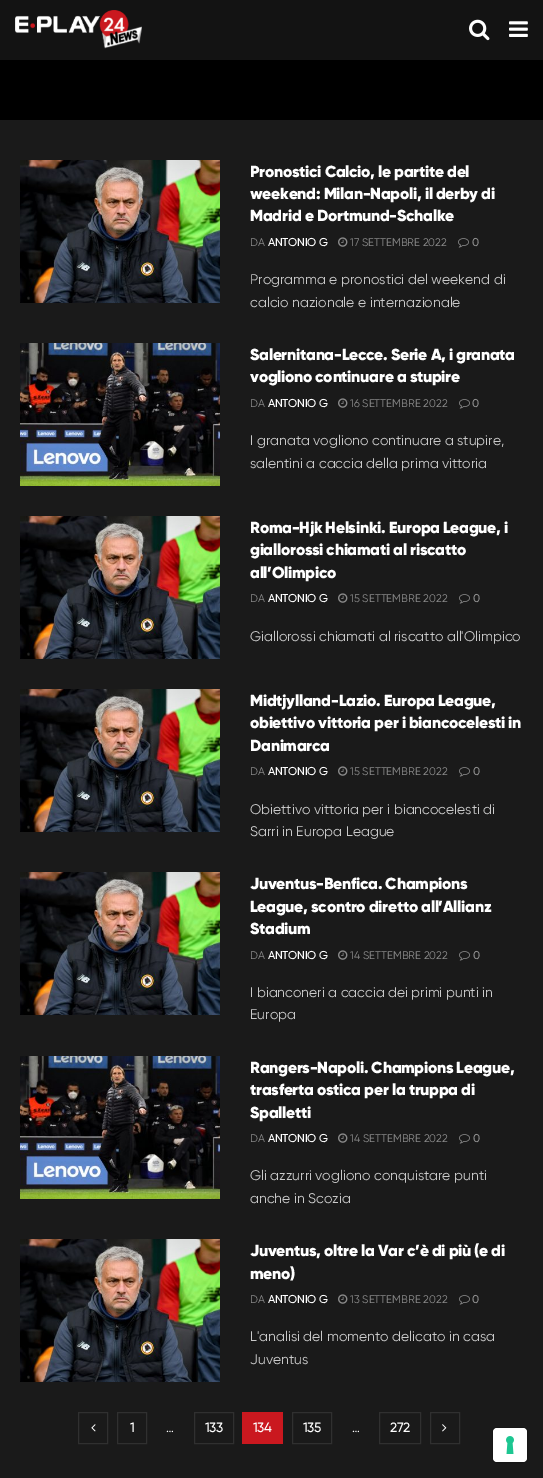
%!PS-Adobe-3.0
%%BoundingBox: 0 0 543 1478
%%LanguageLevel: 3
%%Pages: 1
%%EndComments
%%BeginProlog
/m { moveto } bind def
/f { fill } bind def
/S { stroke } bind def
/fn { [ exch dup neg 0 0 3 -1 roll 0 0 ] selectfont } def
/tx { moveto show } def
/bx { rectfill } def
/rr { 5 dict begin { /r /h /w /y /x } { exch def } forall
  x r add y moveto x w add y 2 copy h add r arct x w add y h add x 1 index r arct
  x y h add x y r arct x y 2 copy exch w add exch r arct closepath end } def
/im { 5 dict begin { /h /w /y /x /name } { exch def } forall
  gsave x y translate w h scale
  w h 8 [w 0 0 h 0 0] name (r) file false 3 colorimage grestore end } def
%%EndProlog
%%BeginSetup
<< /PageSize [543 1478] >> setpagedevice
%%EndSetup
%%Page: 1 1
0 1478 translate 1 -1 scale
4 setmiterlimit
0.102 setgray
0 0 543 1478 bx
0 setgray
0 60 543 60 bx
0.075 setgray
0 0 543 60 bx
(image0.raw) 15 10 127 39 im
(image1.raw) 469 19 21 22 im
(image2.raw) 509 21 19 16 im
(image3.raw) 20 160 200 143 im
/Gilroy-Black 16 fn
1 setgray
250 177 m -0.3 0 (Pronostici Calcio, le partite del) ashow
250 199 m -0.3 0 (weekend: Milan-Napoli, il derby di) ashow
250 221 m -0.3 0 (Madrid e Dortmund-Schalke) ashow
/Gilroy-Regular 11 fn
0.545 setgray
(DA) 250 246 tx
/Gilroy-Bold 11 fn
1 setgray
(ANTONIO G) 268 246 tx
(image4.raw) 338 237 10 10 im
/Gilroy-Regular 11 fn
0.545 setgray
(17 SETTEMBRE 2022) 350 246 tx
(image5.raw) 458 238 11 10 im
/Gilroy-Bold 11 fn
(0) 472 246 tx
/Gilroy-Regular 14 fn
0.792 setgray
(Programma e pronostici del weekend di) 250 284 tx
(calcio nazionale e internazionale) 250 307 tx
(image6.raw) 20 343 200 143 im
/Gilroy-Black 16 fn
1 setgray
250 360 m -0.3 0 (Salernitana-Lecce. Serie A, i granata) ashow
250 382 m -0.3 0 (vogliono continuare a stupire) ashow
/Gilroy-Regular 11 fn
0.545 setgray
(DA) 250 407 tx
/Gilroy-Bold 11 fn
1 setgray
(ANTONIO G) 268 407 tx
(image4.raw) 338 398 10 10 im
/Gilroy-Regular 11 fn
0.545 setgray
(16 SETTEMBRE 2022) 350 407 tx
(image5.raw) 459 399 11 10 im
/Gilroy-Bold 11 fn
(0) 472 407 tx
/Gilroy-Regular 14 fn
0.792 setgray
(I granata vogliono continuare a stupire,) 250 445 tx
(salentini a caccia della prima vittoria) 250 468 tx
(image7.raw) 20 516 200 143 im
/Gilroy-Black 16 fn
1 setgray
250 533 m -0.3 0 (Roma-Hjk Helsinki. Europa League, i) ashow
250 555 m -0.3 0 (giallorossi chiamati al riscatto) ashow
250 578 m -0.3 0 (all’Olimpico) ashow
/Gilroy-Regular 11 fn
0.545 setgray
(DA) 250 602 tx
/Gilroy-Bold 11 fn
1 setgray
(ANTONIO G) 268 602 tx
(image4.raw) 338 593 10 10 im
/Gilroy-Regular 11 fn
0.545 setgray
(15 SETTEMBRE 2022) 350 602 tx
(image5.raw) 459 594 11 10 im
/Gilroy-Bold 11 fn
(0) 473 602 tx
/Gilroy-Regular 14 fn
0.792 setgray
(Giallorossi chiamati al riscatto all'Olimpico) 250 641 tx
(image3.raw) 20 689 200 143 im
/Gilroy-Black 16 fn
1 setgray
250 706 m -0.3 0 (Midtjylland-Lazio. Europa League,) ashow
250 728 m -0.3 0 (obiettivo vittoria per i biancocelesti in) ashow
250 751 m -0.3 0 (Danimarca) ashow
/Gilroy-Regular 11 fn
0.545 setgray
(DA) 250 775 tx
/Gilroy-Bold 11 fn
1 setgray
(ANTONIO G) 268 775 tx
(image4.raw) 338 766 10 10 im
/Gilroy-Regular 11 fn
0.545 setgray
(15 SETTEMBRE 2022) 350 775 tx
(image5.raw) 459 767 11 10 im
/Gilroy-Bold 11 fn
(0) 473 775 tx
/Gilroy-Regular 14 fn
0.792 setgray
(Obiettivo vittoria per i biancocelesti di) 250 814 tx
(Sarri in Europa League) 250 836 tx
(image3.raw) 20 872 200 143 im
/Gilroy-Black 16 fn
1 setgray
250 889 m -0.3 0 (Juventus-Benfica. Champions) ashow
250 912 m -0.3 0 (League, scontro diretto all’Allianz) ashow
250 934 m -0.3 0 (Stadium) ashow
/Gilroy-Regular 11 fn
0.545 setgray
(DA) 250 959 tx
/Gilroy-Bold 11 fn
1 setgray
(ANTONIO G) 268 959 tx
(image4.raw) 338 950 10 10 im
/Gilroy-Regular 11 fn
0.545 setgray
(14 SETTEMBRE 2022) 350 959 tx
(image5.raw) 459 951 11 10 im
/Gilroy-Bold 11 fn
(0) 473 959 tx
/Gilroy-Regular 14 fn
0.792 setgray
(I bianconeri a caccia dei primi punti in) 250 997 tx
(Europa) 250 1019 tx
(image6.raw) 20 1056 200 143 im
/Gilroy-Black 16 fn
1 setgray
250 1073 m -0.3 0 (Rangers-Napoli. Champions League,) ashow
250 1095 m -0.3 0 (trasferta ostica per la truppa di) ashow
250 1118 m -0.3 0 (Spalletti) ashow
/Gilroy-Regular 11 fn
0.545 setgray
(DA) 250 1142 tx
/Gilroy-Bold 11 fn
1 setgray
(ANTONIO G) 268 1142 tx
(image4.raw) 338 1133 10 10 im
/Gilroy-Regular 11 fn
0.545 setgray
(14 SETTEMBRE 2022) 350 1142 tx
(image5.raw) 459 1134 11 10 im
/Gilroy-Bold 11 fn
(0) 473 1142 tx
/Gilroy-Regular 14 fn
0.792 setgray
(Gli azzurri vogliono conquistare punti) 250 1180 tx
(anche in Scozia) 250 1203 tx
(image3.raw) 20 1239 200 143 im
/Gilroy-Black 16 fn
1 setgray
250 1256 m -0.3 0 (Juventus, oltre la Var c’è di più \(e di) ashow
250 1279 m -0.3 0 (meno\)) ashow
/Gilroy-Regular 11 fn
0.545 setgray
(DA) 250 1303 tx
/Gilroy-Bold 11 fn
1 setgray
(ANTONIO G) 268 1303 tx
(image4.raw) 338 1294 10 10 im
/Gilroy-Regular 11 fn
0.545 setgray
(13 SETTEMBRE 2022) 350 1303 tx
(image5.raw) 459 1295 11 10 im
/Gilroy-Bold 11 fn
(0) 472 1303 tx
/Gilroy-Regular 14 fn
0.792 setgray
(L'analisi del momento delicato in casa) 250 1341 tx
(Juventus) 250 1364 tx
0.188 setgray
78.5 1412.5 29 31 rectstroke
(image8.raw) 91 1424 5 8 im
117.5 1412.5 29 31 rectstroke
/Gilroy-Bold 13 fn
1 setgray
(1) 130 1432 tx
/Gilroy-Regular 13 fn
(…) 166 1432 tx
0.188 setgray
194.5 1412.5 39 31 rectstroke
/Gilroy-Bold 13 fn
1 setgray
(133) 205 1432 tx
0.792 0.094 0.122 setrgbcolor
242 1412 41 32 bx
1 setgray
(134) 253 1432 tx
0.188 setgray
292.5 1412.5 39 31 rectstroke
1 setgray
(135) 303 1432 tx
/Gilroy-Regular 13 fn
(…) 352 1432 tx
0.188 setgray
379.5 1412.5 41 31 rectstroke
/Gilroy-Bold 13 fn
1 setgray
(272) 390 1432 tx
0.188 setgray
430.5 1412.5 29 31 rectstroke
(image9.raw) 442 1424 5 8 im
0.086 setgray
492.5 1427.5 35 35 4.5 rr S
1 setgray
493 1428 34 34 4 rr f
(image10.raw) 506 1436 8 18 im
showpage
%%EOF
